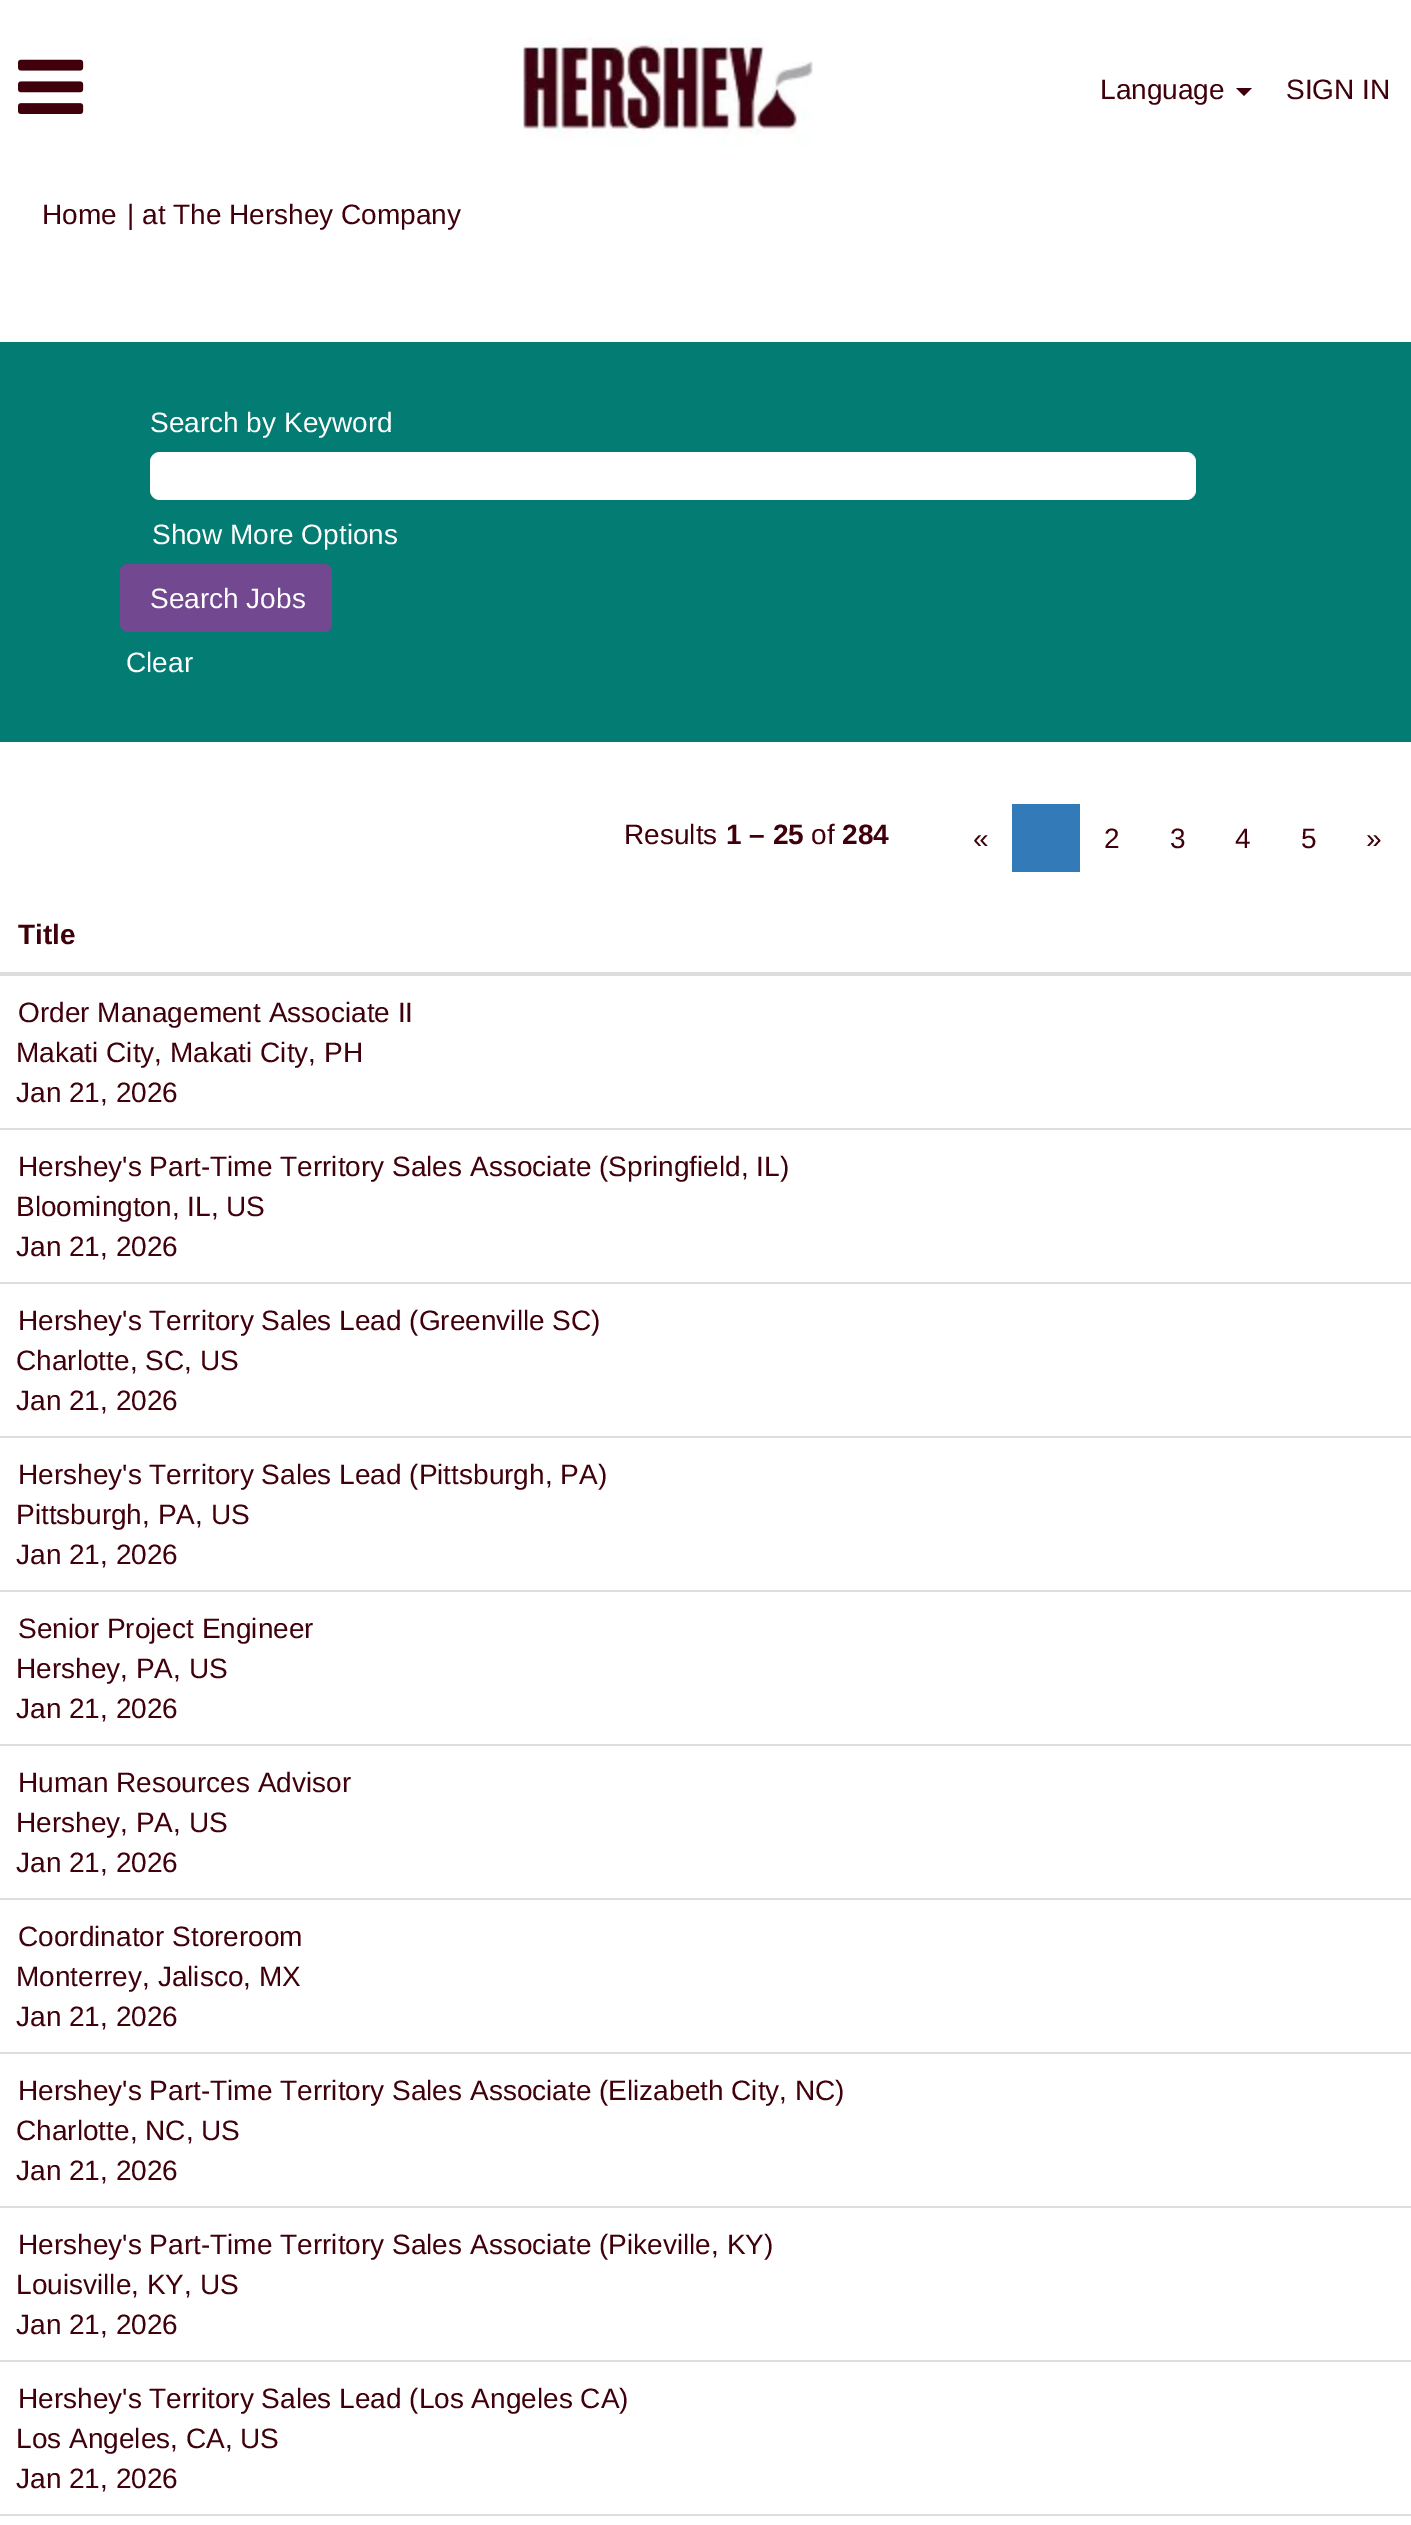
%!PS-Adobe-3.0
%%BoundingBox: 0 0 1411 2525
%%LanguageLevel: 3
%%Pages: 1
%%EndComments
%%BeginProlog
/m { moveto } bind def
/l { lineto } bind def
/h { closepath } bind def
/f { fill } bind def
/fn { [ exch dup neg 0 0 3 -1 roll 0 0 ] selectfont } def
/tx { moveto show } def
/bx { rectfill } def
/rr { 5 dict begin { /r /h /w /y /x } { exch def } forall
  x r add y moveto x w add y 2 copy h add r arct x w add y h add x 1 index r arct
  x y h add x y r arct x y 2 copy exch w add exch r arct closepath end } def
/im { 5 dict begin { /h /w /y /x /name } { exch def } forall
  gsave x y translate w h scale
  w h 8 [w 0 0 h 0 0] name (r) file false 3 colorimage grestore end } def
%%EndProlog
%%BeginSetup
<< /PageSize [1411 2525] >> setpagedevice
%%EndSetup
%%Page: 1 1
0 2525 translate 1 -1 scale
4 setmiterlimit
1 setgray
0 0 1411 2525 bx
(image0.raw) 18 59 66 55 im
(image1.raw) 523 37 290 111 im
/LiberationSans-Regular 28 fn
0.247 0 0.043 setrgbcolor
(Language) 1100 99 tx
1236 88 m 1252 88 l 1244 96 l h f
(SIGN IN) 1286 99 tx
(Home) 42 224 tx
(| at The Hershey Company) 127 224 tx
0.012 0.486 0.451 setrgbcolor
0 342 1411 400 bx
1 setgray
(Search by Keyword) 150 432 tx
150 452 1046 48 10 rr f
(Show More Options) 152 544 tx
0.447 0.286 0.565 setrgbcolor
120 564 212 68 8 rr f
1 setgray
(Search Jobs) 150 608 tx
(Clear) 126 672 tx
0.247 0 0.043 setrgbcolor
(Results) 624 844 tx
/LiberationSans-Bold 28 fn
(1 – 25) 726 844 tx
/LiberationSans-Regular 28 fn
(of) 811 844 tx
/LiberationSans-Bold 28 fn
(284) 842 844 tx
/LiberationSans-Regular 28 fn
(«) 973 848 tx
0.196 0.482 0.722 setrgbcolor
1012 804 68 68 bx
0.247 0 0.043 setrgbcolor
(2) 1104 848 tx
(3) 1170 848 tx
(4) 1235 848 tx
(5) 1301 848 tx
(») 1366 848 tx
0.867 setgray
0 972 1411 4 bx
/LiberationSans-Bold 28 fn
0.247 0 0.043 setrgbcolor
(Title) 18 944 tx
/LiberationSans-Regular 28 fn
(Order Management Associate II) 18 1022 tx
(Makati City, Makati City, PH) 16 1062 tx
(Jan 21, 2026) 16 1102 tx
0.867 setgray
0 1128 1411 2 bx
0.247 0 0.043 setrgbcolor
(Hershey's Part-Time Territory Sales Associate \(Springfield, IL\)) 18 1176 tx
(Bloomington, IL, US) 16 1216 tx
(Jan 21, 2026) 16 1256 tx
0.867 setgray
0 1282 1411 2 bx
0.247 0 0.043 setrgbcolor
(Hershey's Territory Sales Lead \(Greenville SC\)) 18 1330 tx
(Charlotte, SC, US) 16 1370 tx
(Jan 21, 2026) 16 1410 tx
0.867 setgray
0 1436 1411 2 bx
0.247 0 0.043 setrgbcolor
(Hershey's Territory Sales Lead \(Pittsburgh, PA\)) 18 1484 tx
(Pittsburgh, PA, US) 16 1524 tx
(Jan 21, 2026) 16 1564 tx
0.867 setgray
0 1590 1411 2 bx
0.247 0 0.043 setrgbcolor
(Senior Project Engineer) 18 1638 tx
(Hershey, PA, US) 16 1678 tx
(Jan 21, 2026) 16 1718 tx
0.867 setgray
0 1744 1411 2 bx
0.247 0 0.043 setrgbcolor
(Human Resources Advisor) 18 1792 tx
(Hershey, PA, US) 16 1832 tx
(Jan 21, 2026) 16 1872 tx
0.867 setgray
0 1898 1411 2 bx
0.247 0 0.043 setrgbcolor
(Coordinator Storeroom) 18 1946 tx
(Monterrey, Jalisco, MX) 16 1986 tx
(Jan 21, 2026) 16 2026 tx
0.867 setgray
0 2052 1411 2 bx
0.247 0 0.043 setrgbcolor
(Hershey's Part-Time Territory Sales Associate \(Elizabeth City, NC\)) 18 2100 tx
(Charlotte, NC, US) 16 2140 tx
(Jan 21, 2026) 16 2180 tx
0.867 setgray
0 2206 1411 2 bx
0.247 0 0.043 setrgbcolor
(Hershey's Part-Time Territory Sales Associate \(Pikeville, KY\)) 18 2254 tx
(Louisville, KY, US) 16 2294 tx
(Jan 21, 2026) 16 2334 tx
0.867 setgray
0 2360 1411 2 bx
0.247 0 0.043 setrgbcolor
(Hershey's Territory Sales Lead \(Los Angeles CA\)) 18 2408 tx
(Los Angeles, CA, US) 16 2448 tx
(Jan 21, 2026) 16 2488 tx
0.867 setgray
0 2514 1411 2 bx
showpage
%%EOF
